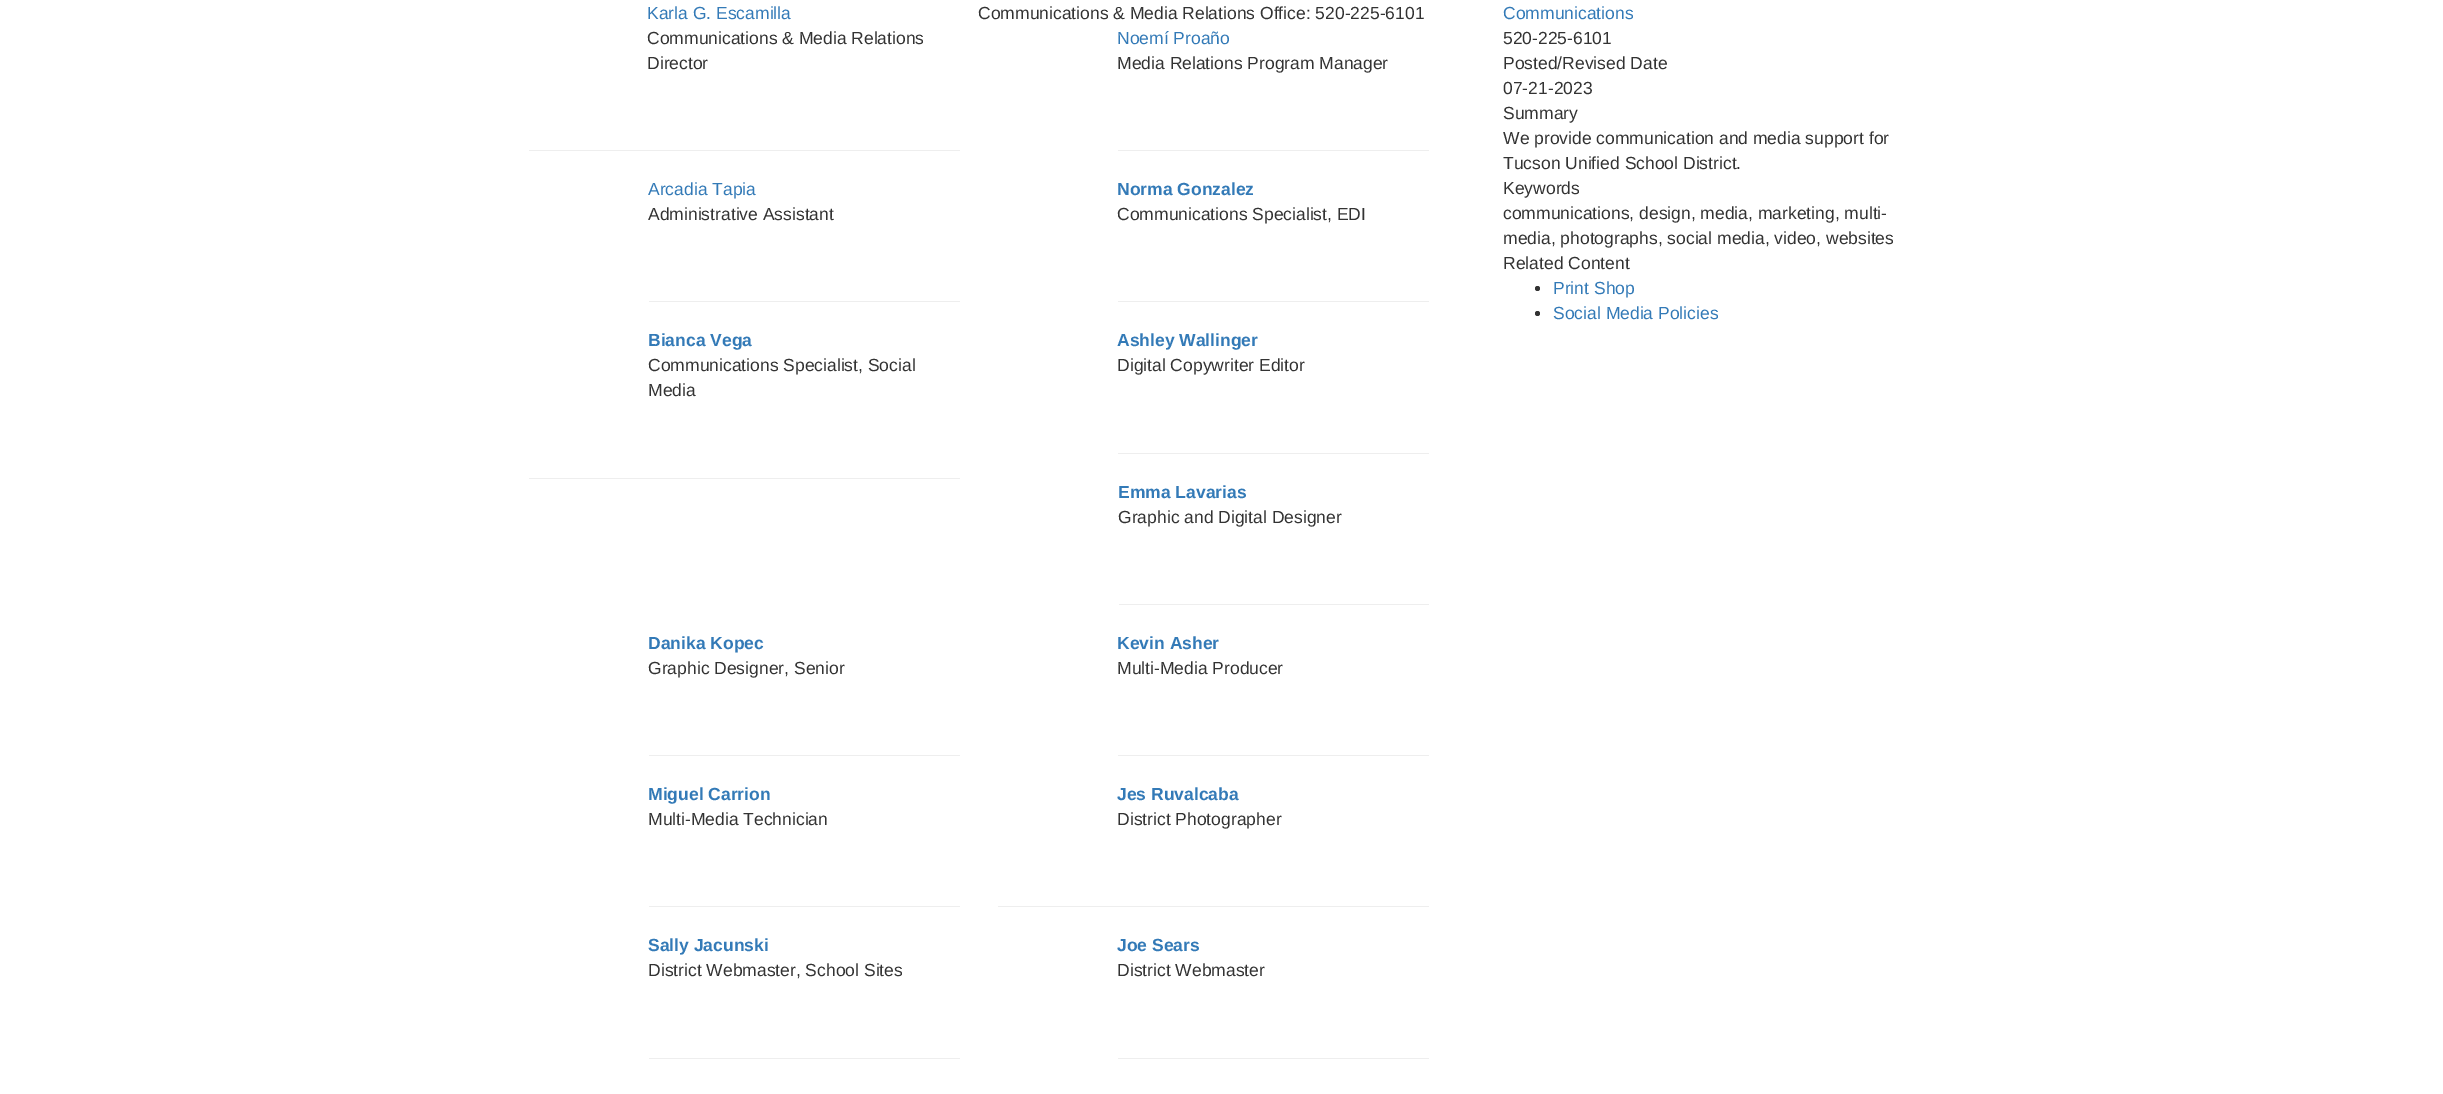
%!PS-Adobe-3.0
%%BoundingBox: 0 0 2443 1094
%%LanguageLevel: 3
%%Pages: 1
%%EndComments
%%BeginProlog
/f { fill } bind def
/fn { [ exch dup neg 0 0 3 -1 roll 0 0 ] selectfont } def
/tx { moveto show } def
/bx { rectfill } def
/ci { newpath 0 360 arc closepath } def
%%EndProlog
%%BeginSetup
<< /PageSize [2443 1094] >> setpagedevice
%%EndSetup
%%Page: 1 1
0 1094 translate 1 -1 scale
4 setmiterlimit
1 setgray
0 0 2443 1094 bx
/LiberationSans-Regular 17.5 fn
0.2 0.478 0.718 setrgbcolor
(Karla G. Escamilla) 647 19 tx
0.2 setgray
(Communications & Media Relations) 647 44 tx
(Director) 647 69 tx
0.933 setgray
529 150 431 1 bx
0.2 setgray
(Communications & Media Relations Office: 520-225-6101) 978 19 tx
0.2 0.478 0.718 setrgbcolor
(Noemí Proaño) 1117 44 tx
0.2 setgray
(Media Relations Program Manager) 1117 69 tx
0.933 setgray
1118 150 311 1 bx
0.2 0.478 0.718 setrgbcolor
(Arcadia Tapia) 648 195 tx
0.2 setgray
(Administrative Assistant) 648 220 tx
0.933 setgray
649 301 311 1 bx
/LiberationSans-Bold 17.5 fn
0.2 0.478 0.718 setrgbcolor
(Norma Gonzalez) 1117 195 tx
/LiberationSans-Regular 17.5 fn
0.2 setgray
(Communications Specialist, EDI) 1117 220 tx
0.933 setgray
1118 301 311 1 bx
/LiberationSans-Bold 17.5 fn
0.2 0.478 0.718 setrgbcolor
(Bianca Vega) 648 346 tx
/LiberationSans-Regular 17.5 fn
0.2 setgray
(Communications Specialist, Social) 648 371 tx
(Media) 648 396 tx
0.933 setgray
529 478 431 1 bx
/LiberationSans-Bold 17.5 fn
0.2 0.478 0.718 setrgbcolor
(Ashley Wallinger) 1117 346 tx
/LiberationSans-Regular 17.5 fn
0.2 setgray
(Digital Copywriter Editor) 1117 371 tx
0.933 setgray
1118 453 311 1 bx
/LiberationSans-Bold 17.5 fn
0.2 0.478 0.718 setrgbcolor
(Emma Lavarias) 1118 498 tx
/LiberationSans-Regular 17.5 fn
0.2 setgray
(Graphic and Digital Designer) 1118 523 tx
0.933 setgray
1119 604 310 1 bx
/LiberationSans-Bold 17.5 fn
0.2 0.478 0.718 setrgbcolor
(Danika Kopec) 648 649 tx
/LiberationSans-Regular 17.5 fn
0.2 setgray
(Graphic Designer, Senior) 648 674 tx
0.933 setgray
649 755 311 1 bx
/LiberationSans-Bold 17.5 fn
0.2 0.478 0.718 setrgbcolor
(Kevin Asher) 1117 649 tx
/LiberationSans-Regular 17.5 fn
0.2 setgray
(Multi-Media Producer) 1117 674 tx
0.933 setgray
1118 755 311 1 bx
/LiberationSans-Bold 17.5 fn
0.2 0.478 0.718 setrgbcolor
(Miguel Carrion) 648 800 tx
/LiberationSans-Regular 17.5 fn
0.2 setgray
(Multi-Media Technician) 648 825 tx
0.933 setgray
649 906 311 1 bx
/LiberationSans-Bold 17.5 fn
0.2 0.478 0.718 setrgbcolor
(Jes Ruvalcaba) 1117 800 tx
/LiberationSans-Regular 17.5 fn
0.2 setgray
(District Photographer) 1117 825 tx
0.933 setgray
998 906 431 1 bx
/LiberationSans-Bold 17.5 fn
0.2 0.478 0.718 setrgbcolor
(Sally Jacunski) 648 951 tx
/LiberationSans-Regular 17.5 fn
0.2 setgray
(District Webmaster, School Sites) 648 976 tx
0.933 setgray
649 1058 311 1 bx
/LiberationSans-Bold 17.5 fn
0.2 0.478 0.718 setrgbcolor
(Joe Sears) 1117 951 tx
/LiberationSans-Regular 17.5 fn
0.2 setgray
(District Webmaster) 1117 976 tx
0.933 setgray
1118 1058 311 1 bx
0.2 0.478 0.718 setrgbcolor
(Communications) 1503 19 tx
0.2 setgray
(520-225-6101) 1503 44 tx
(Posted/Revised Date) 1503 69 tx
(07-21-2023) 1503 94 tx
(Summary) 1503 119 tx
(We provide communication and media support for) 1503 144 tx
(Tucson Unified School District.) 1503 169 tx
(Keywords) 1503 194 tx
(communications, design, media, marketing, multi-) 1503 219 tx
(media, photographs, social media, video, websites) 1503 244 tx
(Related Content) 1503 269 tx
1537.5 288.5 2.5 ci f
0.2 0.478 0.718 setrgbcolor
(Print Shop) 1553 294 tx
0.2 setgray
1537.5 313.5 2.5 ci f
0.2 0.478 0.718 setrgbcolor
(Social Media Policies) 1553 319 tx
showpage
%%EOF
